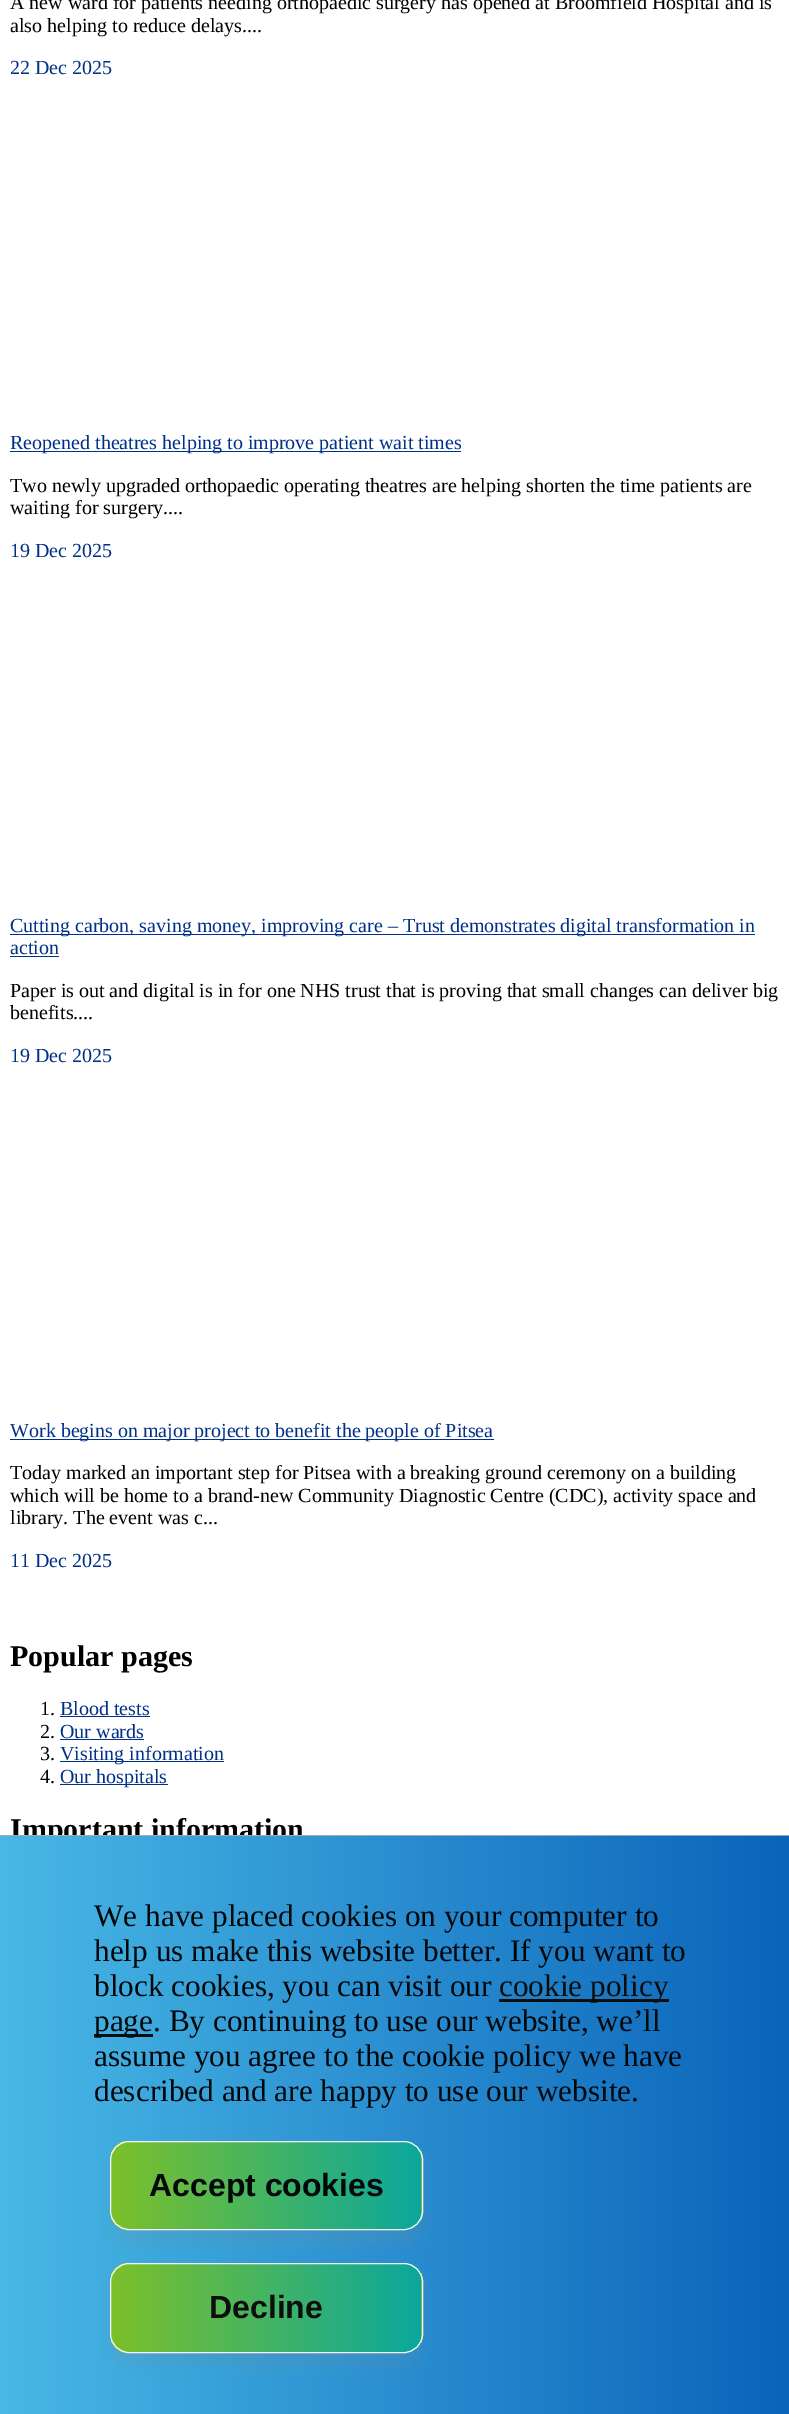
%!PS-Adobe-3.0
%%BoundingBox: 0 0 789 2414
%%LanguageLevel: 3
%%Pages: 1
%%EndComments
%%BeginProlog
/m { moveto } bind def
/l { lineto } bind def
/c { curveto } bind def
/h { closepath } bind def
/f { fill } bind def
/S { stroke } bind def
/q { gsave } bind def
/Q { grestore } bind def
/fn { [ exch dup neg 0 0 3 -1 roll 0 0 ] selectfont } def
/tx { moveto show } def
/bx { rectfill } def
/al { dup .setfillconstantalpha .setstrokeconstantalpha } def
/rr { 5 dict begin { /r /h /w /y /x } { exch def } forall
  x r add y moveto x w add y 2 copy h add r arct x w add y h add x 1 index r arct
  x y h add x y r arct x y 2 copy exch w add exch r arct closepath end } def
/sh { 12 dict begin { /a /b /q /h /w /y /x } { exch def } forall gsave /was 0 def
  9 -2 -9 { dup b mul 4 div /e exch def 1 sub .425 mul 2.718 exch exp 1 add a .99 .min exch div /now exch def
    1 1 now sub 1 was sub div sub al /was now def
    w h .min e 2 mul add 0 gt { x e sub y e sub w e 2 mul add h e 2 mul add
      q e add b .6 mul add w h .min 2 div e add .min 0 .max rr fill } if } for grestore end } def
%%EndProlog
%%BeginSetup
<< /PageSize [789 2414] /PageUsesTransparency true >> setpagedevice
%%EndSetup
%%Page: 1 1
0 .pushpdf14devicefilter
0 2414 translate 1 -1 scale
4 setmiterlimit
1 setgray
0 0 789 2414 bx
/LiberationSerif-Regular 20 fn
0 setgray
(A new ward for patients needing orthopaedic surgery has opened at Broomfield Hospital and is) 10 9 tx
(also helping to reduce delays....) 10 32 tx
0 0.188 0.529 setrgbcolor
(22 Dec 2025) 10 74 tx
10 451 451 1 bx
(Reopened theatres helping to improve patient wait times) 10 449 tx
0 setgray
(Two newly upgraded orthopaedic operating theatres are helping shorten the time patients are) 10 492 tx
(waiting for surgery....) 10 514 tx
0 0.188 0.529 setrgbcolor
(19 Dec 2025) 10 557 tx
10 934 745 1 bx
(Cutting carbon, saving money, improving care – Trust demonstrates digital transformation in) 10 932 tx
(action) 10 954 tx
10 956 49 1 bx
0 setgray
(Paper is out and digital is in for one NHS trust that is proving that small changes can deliver big) 10 997 tx
(benefits....) 10 1019 tx
0 0.188 0.529 setrgbcolor
(19 Dec 2025) 10 1062 tx
10 1439 484 1 bx
(Work begins on major project to benefit the people of Pitsea) 10 1437 tx
0 setgray
(Today marked an important step for Pitsea with a breaking ground ceremony on a building) 10 1479 tx
(which will be home to a brand-new Community Diagnostic Centre \(CDC\), activity space and) 10 1502 tx
(library. The event was c...) 10 1524 tx
0 0.188 0.529 setrgbcolor
(11 Dec 2025) 10 1567 tx
/LiberationSerif-Bold 30 fn
0 setgray
(Popular pages) 10 1666 tx
/LiberationSerif-Regular 20 fn
(1.) 40 1715 tx
0 0.188 0.529 setrgbcolor
(Blood tests) 60 1715 tx
60 1716 90 1 bx
0 setgray
(2.) 40 1738 tx
0 0.188 0.529 setrgbcolor
(Our wards) 60 1738 tx
60 1739 84 1 bx
0 setgray
(3.) 40 1760 tx
0 0.188 0.529 setrgbcolor
60 1761 164 1 bx
(Visiting information) 60 1760 tx
0 setgray
(4.) 40 1783 tx
0 0.188 0.529 setrgbcolor
60 1784 108 1 bx
(Our hospitals) 60 1783 tx
/LiberationSerif-Bold 30 fn
0 setgray
(Important information) 10 1839 tx
0 0.188 0.529 setrgbcolor
60 1890 195 1 bx
60 1913 275 1 bx
60 1935 126 1 bx
60 1958 194 1 bx
60 2064 131 1 bx
60 2086 144 1 bx
60 2109 113 1 bx
60 2131 158 1 bx
60 2174 186 1 bx
60 2196 200 1 bx
60 2219 109 1 bx
60 2241 65 1 bx
138 2284 5 1 bx
760 2284 5 1 bx
110 2391 169 1 bx
0.95 al
0.867 setgray
0 1835 789 579 bx
q 0 1835 m 789 1835 l 789 2414 l 0 2414 l h clip newpath
<< /ShadingType 2 /ColorSpace /DeviceRGB /Coords [0 2126 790 2126] /Extend [true true] /Function << /FunctionType 2 /Domain [0 1] /C0 [0.255 0.714 0.902] /C1 [0 0.369 0.722] /N 1 >> >> shfill Q
0.667 setgray
0 1835 789 1 bx
/LiberationSerif-Regular 31.25 fn
1 al
0.008 0.027 0.039 setrgbcolor
(We have placed cookies on your computer to) 94 1926 tx
(help us make this website better. If you want to) 94 1961 tx
(block cookies, you can visit our) 94 1996 tx
0.051 setgray
499 1999 170 3 bx
(cookie policy) 499 1996 tx
94 2034 59 3 bx
0.008 0.027 0.039 setrgbcolor
(page) 94 2031 tx
(. By continuing to use our website, we’ll) 153 2031 tx
(assume you agree to the cookie policy we have) 94 2066 tx
(described and are happy to use our website.) 94 2101 tx
q
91 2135 m 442 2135 l 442 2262 l 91 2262 l h 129 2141 m 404 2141 l 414.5 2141 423 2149.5 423 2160 c 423 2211 l 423 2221.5 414.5 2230 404 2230 c 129 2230 l 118.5 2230 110 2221.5 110 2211 c 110 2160 l 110 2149.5 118.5 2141 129 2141 c h eoclip newpath
0.463 0.525 0.573 setrgbcolor
110 2154 313 89 19 6 0.19 sh
Q
0.95 al
0.937 setgray
110 2141 313 89 19 rr f
q
110 2141 313 89 19 rr clip newpath
q 110 2154 m 111 2154 l 111 2217 l 110 2217 l h clip newpath
<< /ShadingType 2 /ColorSpace /DeviceRGB /Coords [-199 2186 111 2186] /Extend [true true] /Function << /FunctionType 2 /Domain [0 1] /C0 [0.471 0.745 0.125] /C1 [0 0.643 0.6] /N 1 >> >> shfill Q
q 111 2141 m 421 2141 l 421 2230 l 111 2230 l h clip newpath
<< /ShadingType 2 /ColorSpace /DeviceRGB /Coords [111 2186 421 2186] /Extend [true true] /Function << /FunctionType 2 /Domain [0 1] /C0 [0.471 0.745 0.125] /C1 [0 0.643 0.6] /N 1 >> >> shfill Q
1 al
q 421 2151 m 423 2151 l 423 2220 l 421 2220 l h clip newpath
<< /ShadingType 2 /ColorSpace /DeviceRGB /Coords [421 2186 731 2186] /Extend [true true] /Function << /FunctionType 2 /Domain [0 1] /C0 [0.498 0.757 0.169] /C1 [0.051 0.663 0.62] /N 1 >> >> shfill Q
Q
1 setgray
110.5 2141.5 312 88 18.5 rr S
/LiberationSans-Bold 32 fn
1 al
0.008 0.027 0.039 setrgbcolor
(Accept cookies) 149 2196 tx
q
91 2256 m 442 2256 l 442 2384 l 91 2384 l h 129 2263 m 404 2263 l 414.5 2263 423 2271.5 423 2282 c 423 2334 l 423 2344.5 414.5 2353 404 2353 c 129 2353 l 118.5 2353 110 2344.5 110 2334 c 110 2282 l 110 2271.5 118.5 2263 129 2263 c h eoclip newpath
0.463 0.525 0.573 setrgbcolor
110 2275 313 90 19 6 0.19 sh
Q
0.95 al
0.937 setgray
110 2263 313 90 19 rr f
q
110 2263 313 90 19 rr clip newpath
q 110 2276 m 111 2276 l 111 2340 l 110 2340 l h clip newpath
<< /ShadingType 2 /ColorSpace /DeviceRGB /Coords [-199 2308 111 2308] /Extend [true true] /Function << /FunctionType 2 /Domain [0 1] /C0 [0.471 0.745 0.125] /C1 [0 0.643 0.6] /N 1 >> >> shfill Q
q 111 2263 m 421 2263 l 421 2353 l 111 2353 l h clip newpath
<< /ShadingType 2 /ColorSpace /DeviceRGB /Coords [111 2308 421 2308] /Extend [true true] /Function << /FunctionType 2 /Domain [0 1] /C0 [0.471 0.745 0.125] /C1 [0 0.643 0.6] /N 1 >> >> shfill Q
q 421 2273 m 423 2273 l 423 2343 l 421 2343 l h clip newpath
<< /ShadingType 2 /ColorSpace /DeviceRGB /Coords [421 2308 731 2308] /Extend [true true] /Function << /FunctionType 2 /Domain [0 1] /C0 [0.471 0.745 0.125] /C1 [0 0.643 0.6] /N 1 >> >> shfill Q
Q
1 setgray
110.5 2263.5 312 89 18.5 rr S
1 al
0.051 setgray
(Decline) 209 2318 tx
.poppdf14devicefilter showpage
%%EOF
